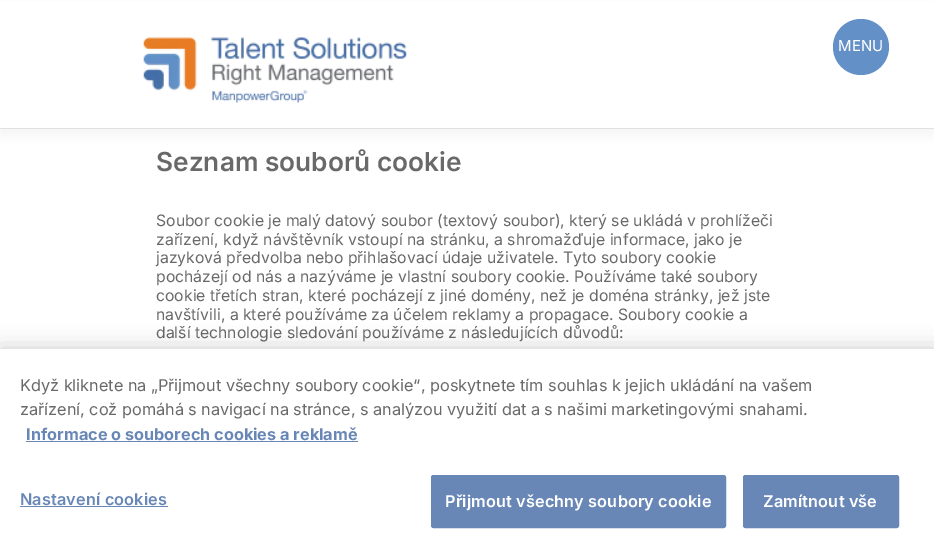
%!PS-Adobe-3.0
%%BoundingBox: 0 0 934 550
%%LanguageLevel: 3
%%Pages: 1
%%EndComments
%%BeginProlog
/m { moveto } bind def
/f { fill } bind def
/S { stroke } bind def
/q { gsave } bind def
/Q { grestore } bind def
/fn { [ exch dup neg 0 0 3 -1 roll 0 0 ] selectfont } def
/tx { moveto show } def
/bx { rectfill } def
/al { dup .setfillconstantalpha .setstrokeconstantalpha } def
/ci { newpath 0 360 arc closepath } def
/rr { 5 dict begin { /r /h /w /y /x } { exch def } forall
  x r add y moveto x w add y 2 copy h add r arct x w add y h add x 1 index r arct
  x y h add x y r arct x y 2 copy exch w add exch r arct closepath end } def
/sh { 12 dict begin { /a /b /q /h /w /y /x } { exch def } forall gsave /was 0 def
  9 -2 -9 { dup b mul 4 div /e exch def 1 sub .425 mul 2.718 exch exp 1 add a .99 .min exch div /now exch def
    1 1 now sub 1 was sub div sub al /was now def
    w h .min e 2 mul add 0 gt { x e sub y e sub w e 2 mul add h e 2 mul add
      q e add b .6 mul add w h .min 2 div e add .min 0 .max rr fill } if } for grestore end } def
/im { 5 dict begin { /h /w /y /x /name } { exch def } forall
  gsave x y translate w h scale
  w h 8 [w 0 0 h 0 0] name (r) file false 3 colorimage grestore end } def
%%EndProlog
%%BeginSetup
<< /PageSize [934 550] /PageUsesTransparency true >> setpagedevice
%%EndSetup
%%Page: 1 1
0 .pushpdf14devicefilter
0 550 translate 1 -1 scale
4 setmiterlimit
1 setgray
0 0 934 550 bx
0.914 setgray
0 128 934 1 bx
0.196 setgray
0 6 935 128 0 6 0.06 sh
1 setgray
0 1 934 127 bx
0.388 0.565 0.776 setrgbcolor
861 47 28 ci f
/Inter-Regular 15 fn
1 setgray
(MENU) 838 51 tx
(image0.raw) 143 37 264 66 im
/Inter-SemiBold 26.25 fn
0.412 setgray
(Seznam souborů cookie) 156 171 tx
/Inter-Regular 15.75 fn
(Soubor cookie je malý datový soubor \(textový soubor\), který se ukládá v prohlížeči) 156 226 tx
(zařízení, když návštěvník vstoupí na stránku, a shromažďuje informace, jako je) 156 245 tx
(jazyková předvolba nebo přihlašovací údaje uživatele. Tyto soubory cookie) 156 263 tx
(pocházejí od nás a nazýváme je vlastní soubory cookie. Používáme také soubory) 156 282 tx
(cookie třetích stran, které pocházejí z jiné domény, než je doména stránky, jež jste) 156 301 tx
(navštívili, a které používáme za účelem reklamy a propagace. Soubory cookie a) 156 320 tx
(další technologie sledování používáme z následujících důvodů:) 156 338 tx
0 setgray
0 349 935 201 0 11 0.2 sh
1 setgray
0 349 934 201 bx
/Inter-Regular 16.25 fn
0.412 setgray
(Když kliknete na „Přijmout všechny soubory cookie“, poskytnete tím souhlas k jejich ukládání na vašem) 20 391 tx
(zařízení, což pomáhá s navigací na stránce, s analýzou využití dat a s našimi marketingovými snahami.) 20 415 tx
/Inter-Bold 16.25 fn
0.408 0.529 0.714 setrgbcolor
(Informace o souborech cookies a reklamě) 26 440 tx
26 441 332 1 bx
/Inter-SemiBold 16.25 fn
20 505 m 0.15 0 (Nastavení cookies) ashow
20 506 148 1 bx
431.5 475.5 294 52 2 rr q f Q
S
1 setgray
445 507 m 0.15 0 (Přijmout všechny soubory cookie) ashow
0.408 0.529 0.714 setrgbcolor
743.5 475.5 155 52 2 rr q f Q
S
1 setgray
763 507 m 0.15 0 (Zamítnout vše) ashow
.poppdf14devicefilter showpage
%%EOF
